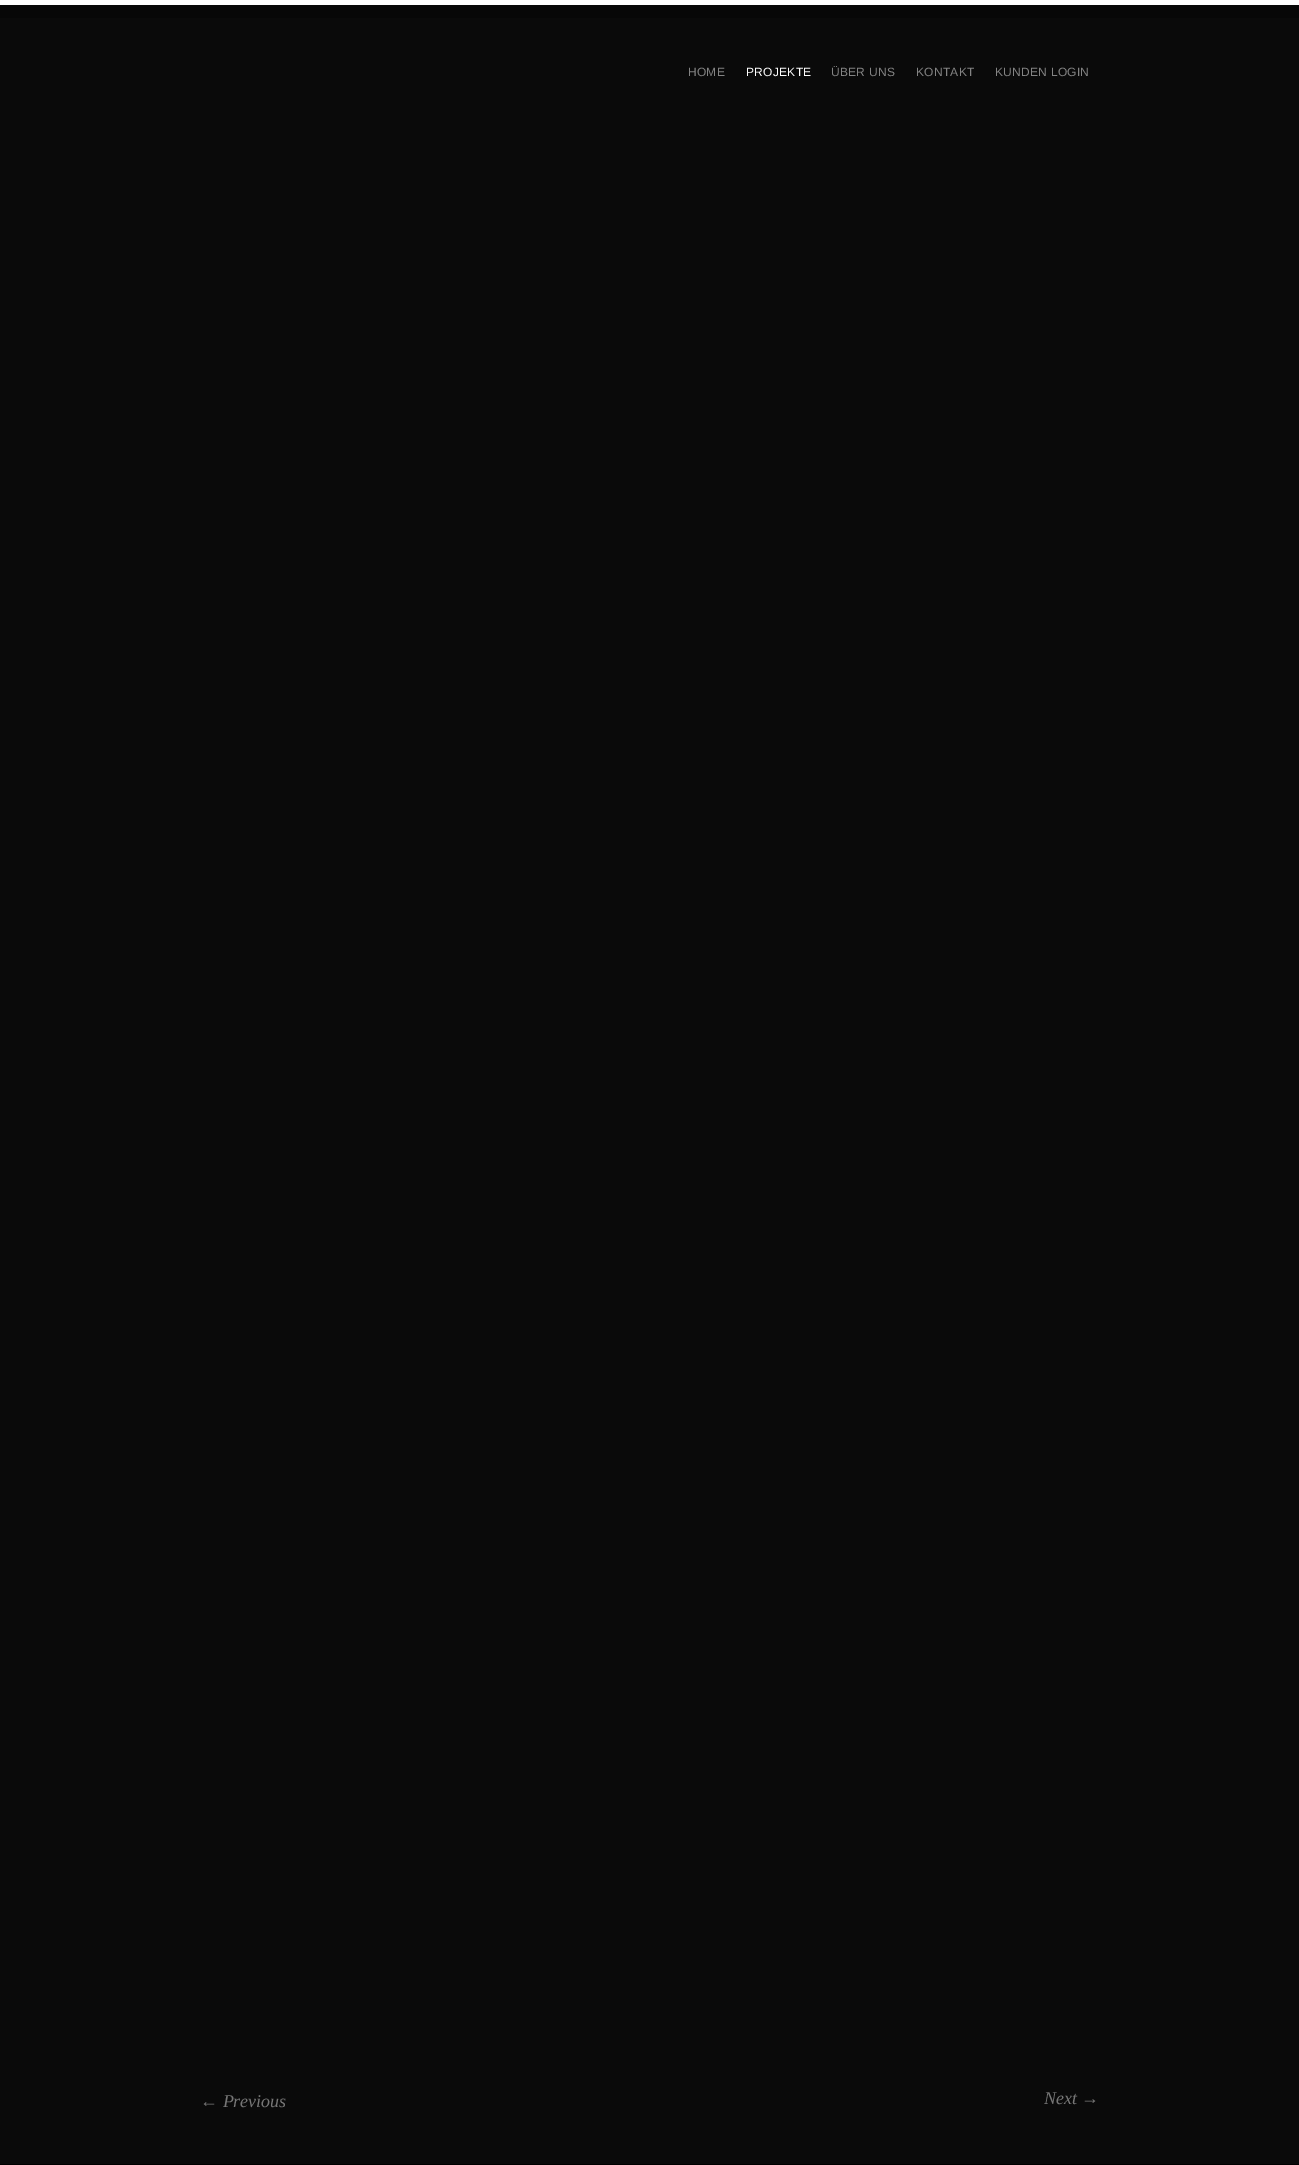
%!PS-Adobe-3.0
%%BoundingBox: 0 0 1299 2165
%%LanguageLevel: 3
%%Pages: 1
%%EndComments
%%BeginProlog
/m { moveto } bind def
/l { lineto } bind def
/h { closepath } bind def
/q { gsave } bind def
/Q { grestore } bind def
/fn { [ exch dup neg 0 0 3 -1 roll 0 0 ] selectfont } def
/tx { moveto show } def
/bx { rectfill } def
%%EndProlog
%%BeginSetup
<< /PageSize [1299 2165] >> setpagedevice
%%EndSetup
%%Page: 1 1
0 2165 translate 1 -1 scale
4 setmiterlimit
0.039 setgray
0 0 1299 2165 bx
1 setgray
0 0 1299 5 bx
q 0 5 m 1299 5 l 1299 18 l 0 18 l h clip newpath
<< /ShadingType 2 /ColorSpace /DeviceRGB /Coords [0 0 0 106] /Extend [true true] /Function << /FunctionType 2 /Domain [0 1] /C0 [0.027 0.027 0.027] /C1 [0.039 0.039 0.039] /N 1 >> >> shfill Q
/LiberationSans-Regular 12 fn
0.518 setgray
688 76 m 0.25 0 (HOME) ashow
1 setgray
746 76 m 0.25 0 (PROJEKTE) ashow
0.518 setgray
831 76 m 0.25 0 (ÜBER UNS) ashow
916 76 m 0.25 0 (KONTAKT) ashow
995 76 m 0.25 0 (KUNDEN LOGIN) ashow
/LiberationSerif-Italic 18 fn
0.463 setgray
(← Previous) 200 2107 tx
(Next →) 1044 2104 tx
0 setgray
0 2164 1299 1 bx
showpage
%%EOF
